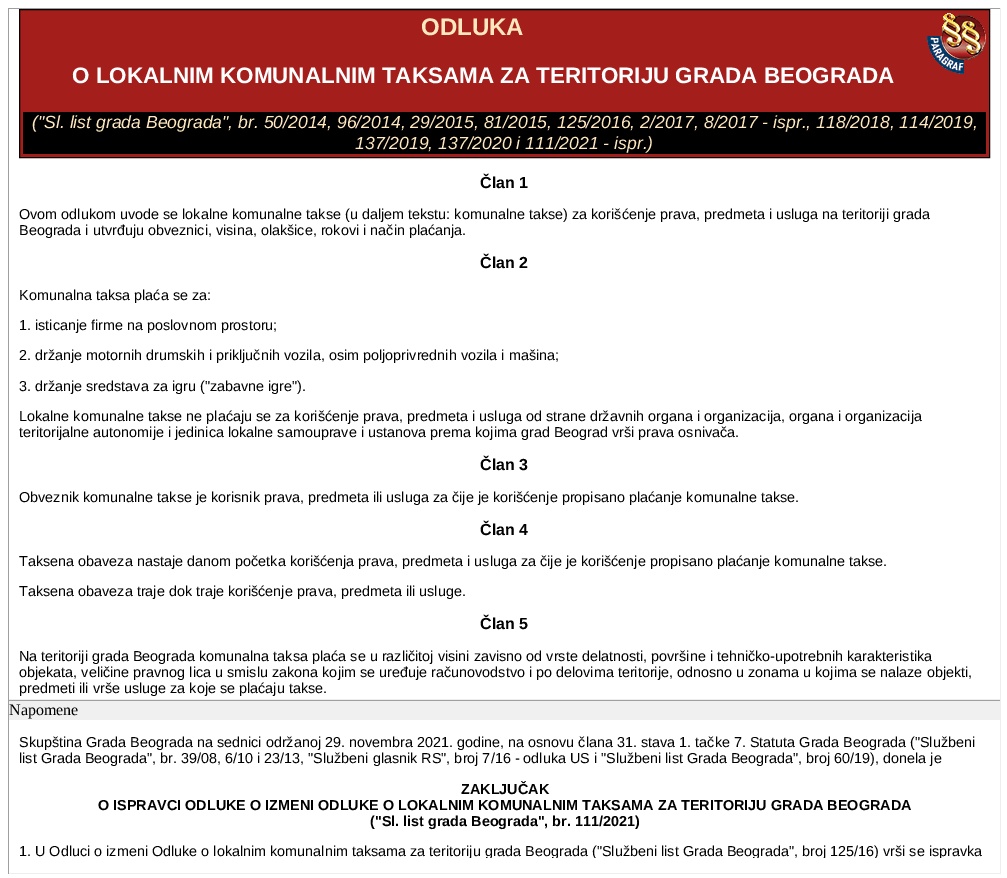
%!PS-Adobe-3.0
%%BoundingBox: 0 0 1007 878
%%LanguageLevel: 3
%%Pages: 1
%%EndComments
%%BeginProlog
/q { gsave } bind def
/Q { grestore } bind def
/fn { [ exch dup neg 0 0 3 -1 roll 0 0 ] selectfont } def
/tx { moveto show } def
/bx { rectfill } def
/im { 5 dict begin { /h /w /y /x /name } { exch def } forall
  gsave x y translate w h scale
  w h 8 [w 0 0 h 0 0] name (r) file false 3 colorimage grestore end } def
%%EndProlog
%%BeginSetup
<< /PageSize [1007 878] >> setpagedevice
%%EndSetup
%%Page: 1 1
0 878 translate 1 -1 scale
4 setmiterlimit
1 setgray
0 0 1007 878 bx
0.624 setgray
8 8 993 1 bx
0.933 setgray
1000 8 1 692 bx
8 699 993 1 bx
0.624 setgray
8 8 1 692 bx
0.643 0.118 0.11 setrgbcolor
20 10 969 147 bx
(image0.raw) 927 13 59 61 im
0 setgray
19.5 9.5 970 148 rectstroke
/LiberationSans-Bold 24 fn
1 0.91 0.749 setrgbcolor
(ODLUKA) 421 35 tx
/LiberationSans-Bold 22.4 fn
1 setgray
(O LOKALNIM KOMUNALNIM TAKSAMA ZA TERITORIJU GRADA BEOGRADA) 72 83 tx
0 setgray
23 112 963 42 bx
/LiberationSans-Italic 17.6 fn
1 0.91 0.749 setrgbcolor
(\("Sl. list grada Beograda", br. 50/2014, 96/2014, 29/2015, 81/2015, 125/2016, 2/2017, 8/2017 - ispr., 118/2018, 114/2019,) 32 128 tx
(137/2019, 137/2020 i 111/2021 - ispr.\)) 355 149 tx
/LiberationSans-Bold 16 fn
0 setgray
(Član 1) 480 188 tx
/LiberationSans-Regular 14.4 fn
(Ovom odlukom uvode se lokalne komunalne takse \(u daljem tekstu: komunalne takse\) za korišćenje prava, predmeta i usluga na teritoriji grada) 19 219 tx
(Beograda i utvrđuju obveznici, visina, olakšice, rokovi i način plaćanja.) 19 235 tx
/LiberationSans-Bold 16 fn
(Član 2) 480 268 tx
/LiberationSans-Regular 14.4 fn
(Komunalna taksa plaća se za:) 19 300 tx
(1. isticanje firme na poslovnom prostoru;) 19 330 tx
(2. držanje motornih drumskih i priključnih vozila, osim poljoprivrednih vozila i mašina;) 19 360 tx
(3. držanje sredstava za igru \("zabavne igre"\).) 19 391 tx
(Lokalne komunalne takse ne plaćaju se za korišćenje prava, predmeta i usluga od strane državnih organa i organizacija, organa i organizacija) 19 421 tx
(teritorijalne autonomije i jedinica lokalne samouprave i ustanova prema kojima grad Beograd vrši prava osnivača.) 19 437 tx
/LiberationSans-Bold 16 fn
(Član 3) 480 470 tx
/LiberationSans-Regular 14.4 fn
(Obveznik komunalne takse je korisnik prava, predmeta ili usluga za čije je korišćenje propisano plaćanje komunalne takse.) 19 502 tx
/LiberationSans-Bold 16 fn
(Član 4) 480 535 tx
/LiberationSans-Regular 14.4 fn
(Taksena obaveza nastaje danom početka korišćenja prava, predmeta i usluga za čije je korišćenje propisano plaćanje komunalne takse.) 19 566 tx
(Taksena obaveza traje dok traje korišćenje prava, predmeta ili usluge.) 19 596 tx
/LiberationSans-Bold 16 fn
(Član 5) 480 629 tx
/LiberationSans-Regular 14.4 fn
(Na teritoriji grada Beograda komunalna taksa plaća se u različitoj visini zavisno od vrste delatnosti, površine i tehničko-upotrebnih karakteristika) 19 661 tx
(objekata, veličine pravnog lica u smislu zakona kojim se uređuje računovodstvo i po delovima teritorije, odnosno u zonama u kojima se nalaze objekti,) 19 677 tx
(predmeti ili vrše usluge za koje se plaćaju takse.) 19 693 tx
0.624 setgray
8 700 993 1 bx
0.933 setgray
1000 700 1 174 bx
8 873 993 1 bx
0.624 setgray
8 700 1 174 bx
0.941 setgray
9 701 991 19 bx
/LiberationSerif-Regular 16 fn
0 setgray
(Napomene) 9 715 tx
/LiberationSans-Regular 14.4 fn
(Skupština Grada Beograda na sednici održanoj 29. novembra 2021. godine, na osnovu člana 31. stava 1. tačke 7. Statuta Grada Beograda \("Službeni) 19 747 tx
(list Grada Beograda", br. 39/08, 6/10 i 23/13, "Službeni glasnik RS", broj 7/16 - odluka US i "Službeni list Grada Beograda", broj 60/19\), donela je) 19 763 tx
/LiberationSans-Bold 14.4 fn
(ZAKLJUČAK) 461 794 tx
(O ISPRAVCI ODLUKE O IZMENI ODLUKE O LOKALNIM KOMUNALNIM TAKSAMA ZA TERITORIJU GRADA BEOGRADA) 98 810 tx
(\("Sl. list grada Beograda", br. 111/2021\)) 370 826 tx
q
9 720 991 138 rectclip
/LiberationSans-Regular 14.4 fn
(1. U Odluci o izmeni Odluke o lokalnim komunalnim taksama za teritoriju grada Beograda \("Službeni list Grada Beograda", broj 125/16\) vrši se ispravka) 19 856 tx
Q
showpage
%%EOF
